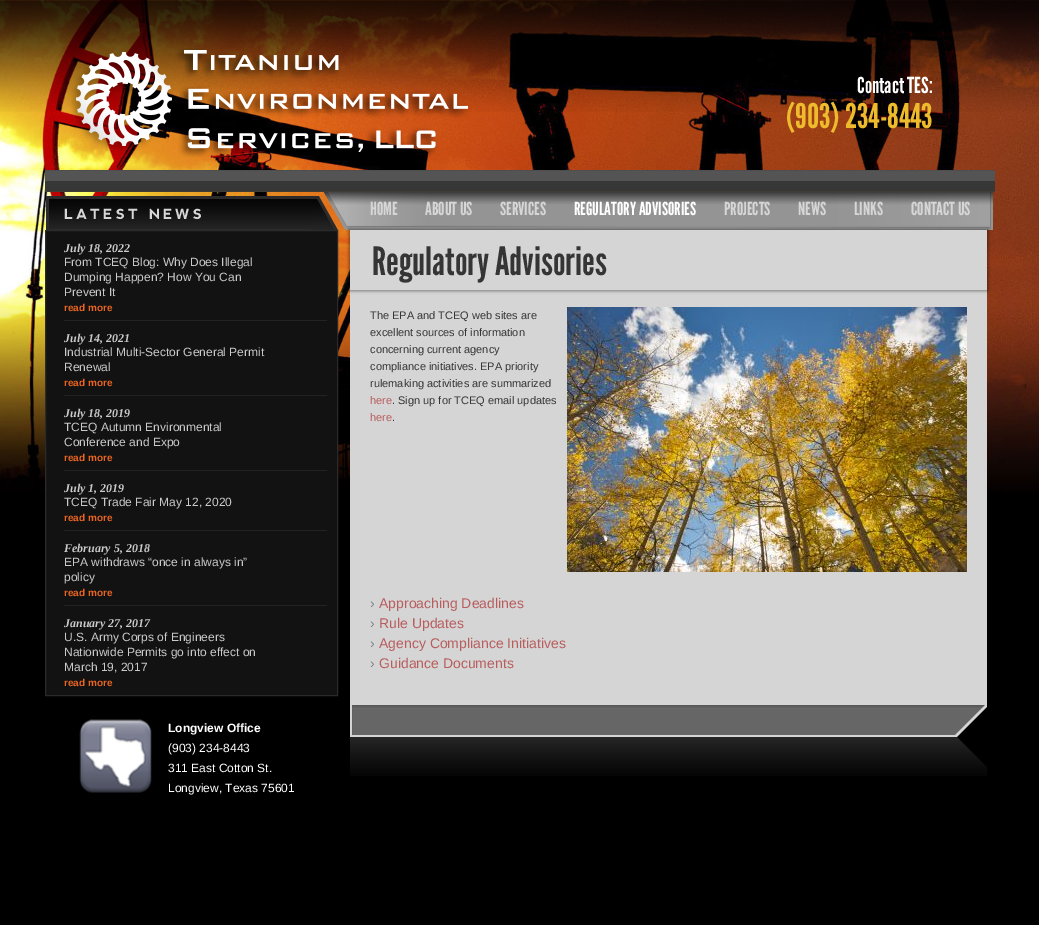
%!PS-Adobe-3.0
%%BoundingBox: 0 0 1039 925
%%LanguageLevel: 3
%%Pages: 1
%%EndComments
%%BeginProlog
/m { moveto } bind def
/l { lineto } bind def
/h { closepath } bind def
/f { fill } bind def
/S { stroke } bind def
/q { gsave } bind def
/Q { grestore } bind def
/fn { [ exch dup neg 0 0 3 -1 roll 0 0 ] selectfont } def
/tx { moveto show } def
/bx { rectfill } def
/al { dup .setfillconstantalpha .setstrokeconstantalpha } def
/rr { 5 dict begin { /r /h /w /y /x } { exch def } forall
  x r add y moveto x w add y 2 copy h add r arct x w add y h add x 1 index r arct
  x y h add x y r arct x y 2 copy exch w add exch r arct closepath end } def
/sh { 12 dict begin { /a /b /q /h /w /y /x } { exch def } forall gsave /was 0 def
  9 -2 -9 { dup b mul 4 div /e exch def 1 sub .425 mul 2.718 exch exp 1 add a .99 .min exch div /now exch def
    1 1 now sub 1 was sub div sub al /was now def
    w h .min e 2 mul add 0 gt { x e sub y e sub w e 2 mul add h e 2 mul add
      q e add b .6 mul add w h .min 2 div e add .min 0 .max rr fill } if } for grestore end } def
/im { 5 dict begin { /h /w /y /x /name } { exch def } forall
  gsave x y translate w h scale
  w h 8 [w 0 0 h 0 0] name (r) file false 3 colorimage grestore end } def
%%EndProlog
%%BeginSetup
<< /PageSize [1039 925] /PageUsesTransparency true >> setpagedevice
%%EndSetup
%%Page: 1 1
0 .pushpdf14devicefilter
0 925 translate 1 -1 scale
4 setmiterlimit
0 setgray
0 0 1039 925 bx
(image0.raw) 0 0 1039 493 im
(image1.raw) 0 0 1039 112 im
(image2.raw) 68 48 401 109 im
/LeagueGothic-Regular 22 fn
1 setgray
(Contact TES:) 857 93 tx
/LeagueGothic-Regular 34 fn
0.933 0.733 0.173 setrgbcolor
(\(903\) 234-8443) 786 128 tx
(image3.raw) 45 170 950 22 im
q 49 199 m 311 199 l 311 230 l 49 230 l h clip newpath
<< /ShadingType 2 /ColorSpace /DeviceRGB /Coords [180 199 180 230] /Extend [true true] /Function << /FunctionType 3 /Domain [0 1] /Functions [<< /FunctionType 2 /Domain [0 1] /C0 [0.02 0.02 0.02] /C1 [0.051 0.051 0.051] /N 1 >> << /FunctionType 2 /Domain [0 1] /C0 [0.051 0.051 0.051] /C1 [0.145 0.145 0.145] /N 1 >> << /FunctionType 2 /Domain [0 1] /C0 [0.145 0.145 0.145] /C1 [0.165 0.165 0.165] /N 1 >>] /Bounds [0.29 0.97] /Encode [0 1 0 1 0 1] >> >> shfill Q
0.169 setgray
46 196 265 3 bx
46 196 3 34 bx
/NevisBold-Bold 14 fn
0.839 setgray
64 219 m 3 0 (LATEST NEWS) ashow
0.835 setgray
350 228 637 477 bx
(image6.raw) 323 192 670 38 im
(image4.raw) 311 196 27 34 im
0.071 setgray
45.5 230.5 m 337.5 230.5 l 337.5 695.5 l 45.5 695.5 l h q f Q
0.165 setgray
S
/LiberationSerif-BoldItalic 12 fn
0.792 setgray
(July 18, 2022) 64 252 tx
/LiberationSans-Regular 12 fn
(From TCEQ Blog: Why Does Illegal) 64 266 tx
(Dumping Happen? How You Can) 64 281 tx
(Prevent It) 64 296 tx
/LiberationSans-Bold 10 fn
0.922 0.392 0.129 setrgbcolor
(read more) 64 311 tx
0.133 setgray
64 320 263 1 bx
/LiberationSerif-BoldItalic 12 fn
0.792 setgray
(July 14, 2021) 64 342 tx
/LiberationSans-Regular 12 fn
(Industrial Multi-Sector General Permit) 64 356 tx
(Renewal) 64 371 tx
/LiberationSans-Bold 10 fn
0.922 0.392 0.129 setrgbcolor
(read more) 64 386 tx
0.133 setgray
64 395 263 1 bx
/LiberationSerif-BoldItalic 12 fn
0.792 setgray
(July 18, 2019) 64 417 tx
/LiberationSans-Regular 12 fn
(TCEQ Autumn Environmental) 64 431 tx
(Conference and Expo) 64 446 tx
/LiberationSans-Bold 10 fn
0.922 0.392 0.129 setrgbcolor
(read more) 64 461 tx
0.133 setgray
64 470 263 1 bx
/LiberationSerif-BoldItalic 12 fn
0.792 setgray
(July 1, 2019) 64 492 tx
/LiberationSans-Regular 12 fn
(TCEQ Trade Fair May 12, 2020) 64 506 tx
/LiberationSans-Bold 10 fn
0.922 0.392 0.129 setrgbcolor
(read more) 64 521 tx
0.133 setgray
64 530 263 1 bx
/LiberationSerif-BoldItalic 12 fn
0.792 setgray
(February 5, 2018) 64 552 tx
/LiberationSans-Regular 12 fn
(EPA withdraws “once in always in”) 64 566 tx
(policy) 64 581 tx
/LiberationSans-Bold 10 fn
0.922 0.392 0.129 setrgbcolor
(read more) 64 596 tx
0.133 setgray
64 605 263 1 bx
/LiberationSerif-BoldItalic 12 fn
0.792 setgray
(January 27, 2017) 64 627 tx
/LiberationSans-Regular 12 fn
(U.S. Army Corps of Engineers) 64 641 tx
(Nationwide Permits go into effect on) 64 656 tx
(March 19, 2017) 64 671 tx
/LiberationSans-Bold 10 fn
0.922 0.392 0.129 setrgbcolor
(read more) 64 686 tx
(image5.raw) 79 719 73 74 im
/LiberationSans-Bold 12 fn
1 setgray
(Longview Office) 168 732 tx
/LiberationSans-Regular 12 fn
(\(903\) 234-8443) 168 752 tx
(311 East Cotton St.) 168 772 tx
(Longview, Texas 75601) 168 792 tx
/LeagueGothic-Regular 18 fn
0.839 setgray
(HOME) 370 215 tx
(ABOUT US) 425 215 tx
(SERVICES) 500 215 tx
1 setgray
(REGULATORY ADVISORIES) 574 215 tx
0.839 setgray
(PROJECTS) 724 215 tx
(NEWS) 798 215 tx
(LINKS) 854 215 tx
(CONTACT US) 911 215 tx
q
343 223 m 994 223 l 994 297 l 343 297 l h 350 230 m 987 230 l 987 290 l 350 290 l h eoclip newpath
0 setgray
349 229 639 62 0 1.5 0.4 sh
Q
/LeagueGothic-Regular 39 fn
0.208 setgray
(Regulatory Advisories) 372 275 tx
/LiberationSans-Regular 11 fn
(The EPA and TCEQ web sites are) 370 319 tx
(excellent sources of information) 370 336 tx
(concerning current agency) 370 353 tx
(compliance initiatives. EPA priority) 370 370 tx
(rulemaking activities are summarized) 370 387 tx
0.722 0.365 0.365 setrgbcolor
(here) 370 404 tx
0.208 setgray
(. Sign up for TCEQ email updates) 392 404 tx
0.722 0.365 0.365 setrgbcolor
(here) 370 421 tx
0.208 setgray
(.) 392 421 tx
(image7.raw) 567 307 400 265 im
/LiberationSans-Regular 14 fn
0.502 setgray
(›) 370 608 tx
0.722 0.365 0.365 setrgbcolor
(Approaching Deadlines) 379 608 tx
0.502 setgray
(›) 370 628 tx
0.722 0.365 0.365 setrgbcolor
(Rule Updates) 379 628 tx
0.502 setgray
(›) 370 648 tx
0.722 0.365 0.365 setrgbcolor
(Agency Compliance Initiatives) 379 648 tx
0.502 setgray
(›) 370 668 tx
0.722 0.365 0.365 setrgbcolor
(Guidance Documents) 379 668 tx
(image8.raw) 350 705 637 71 im
.poppdf14devicefilter showpage
%%EOF
